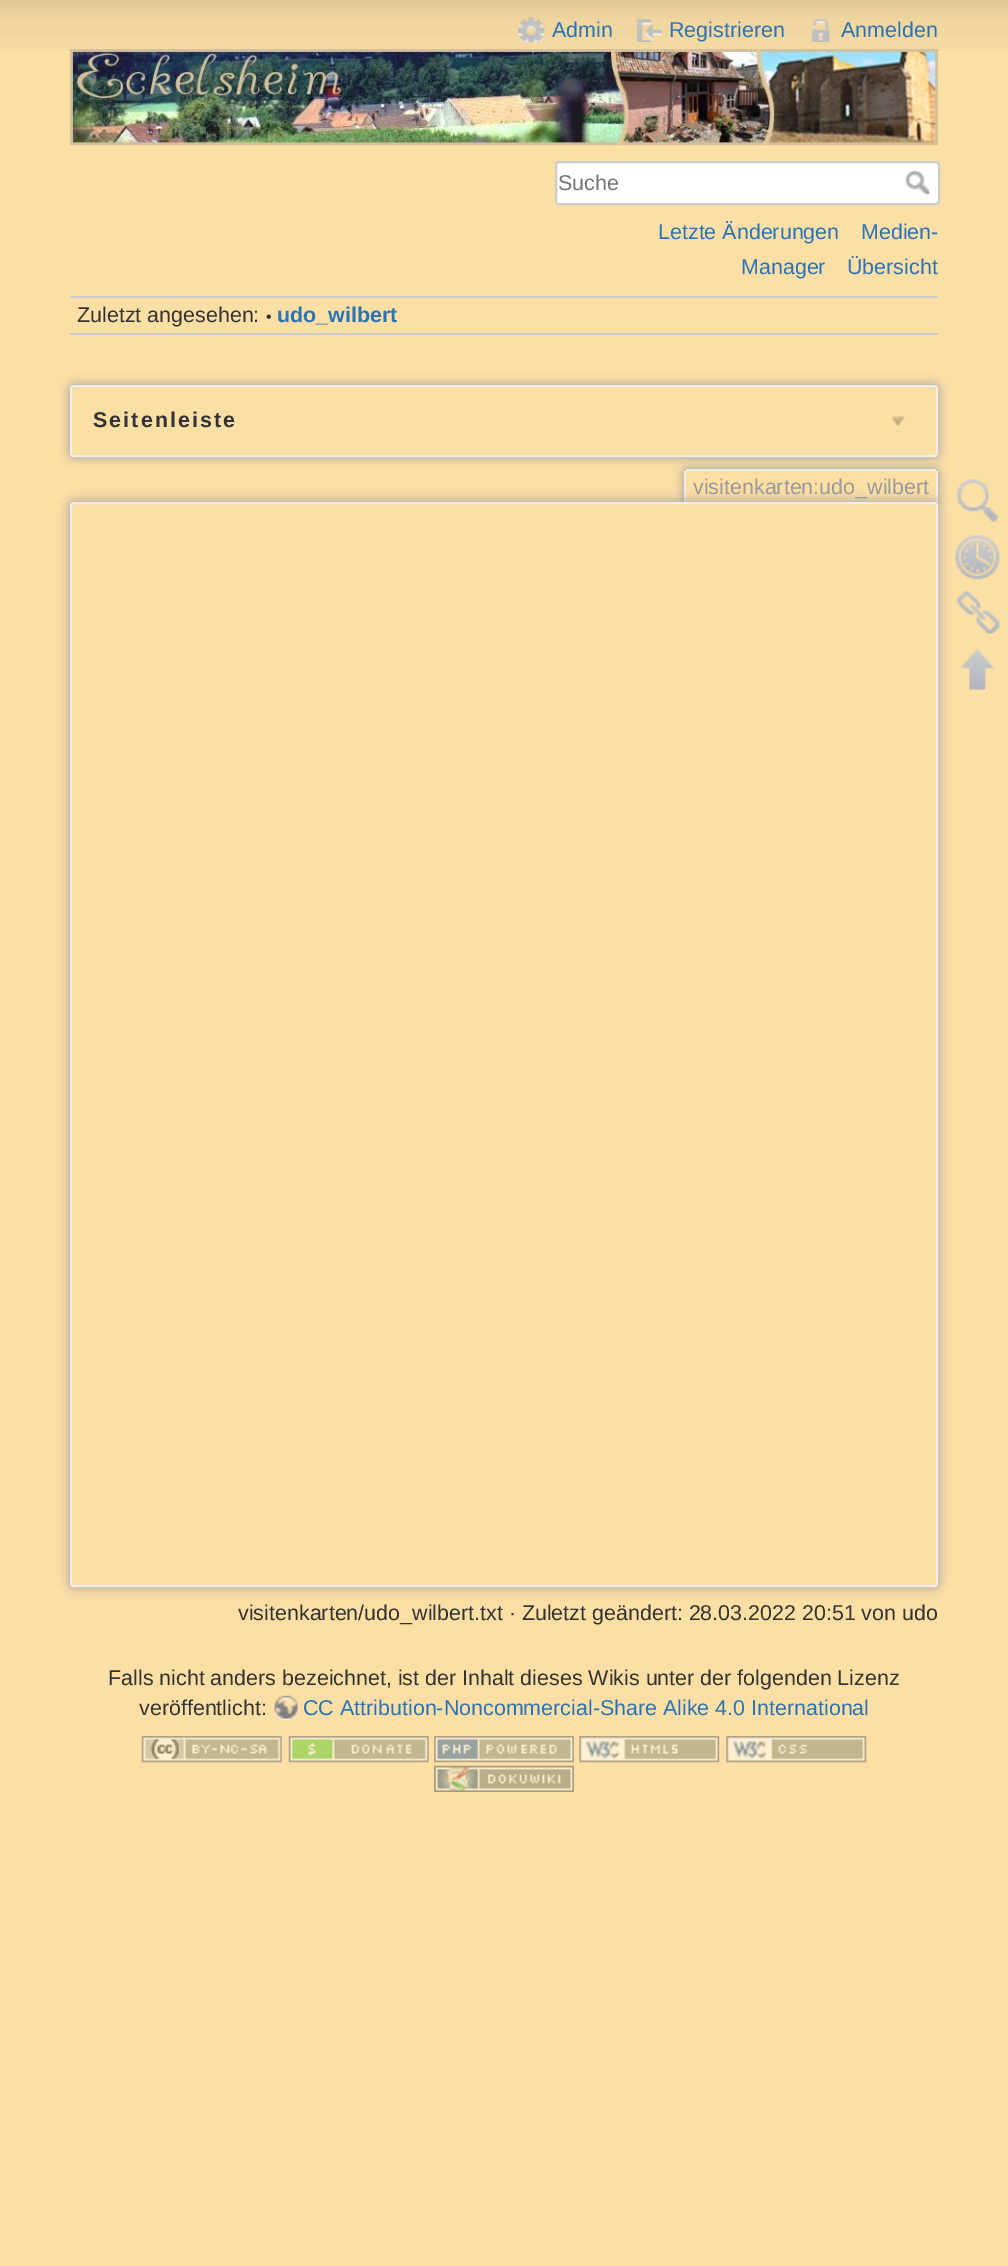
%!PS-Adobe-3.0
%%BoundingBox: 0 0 1008 2266
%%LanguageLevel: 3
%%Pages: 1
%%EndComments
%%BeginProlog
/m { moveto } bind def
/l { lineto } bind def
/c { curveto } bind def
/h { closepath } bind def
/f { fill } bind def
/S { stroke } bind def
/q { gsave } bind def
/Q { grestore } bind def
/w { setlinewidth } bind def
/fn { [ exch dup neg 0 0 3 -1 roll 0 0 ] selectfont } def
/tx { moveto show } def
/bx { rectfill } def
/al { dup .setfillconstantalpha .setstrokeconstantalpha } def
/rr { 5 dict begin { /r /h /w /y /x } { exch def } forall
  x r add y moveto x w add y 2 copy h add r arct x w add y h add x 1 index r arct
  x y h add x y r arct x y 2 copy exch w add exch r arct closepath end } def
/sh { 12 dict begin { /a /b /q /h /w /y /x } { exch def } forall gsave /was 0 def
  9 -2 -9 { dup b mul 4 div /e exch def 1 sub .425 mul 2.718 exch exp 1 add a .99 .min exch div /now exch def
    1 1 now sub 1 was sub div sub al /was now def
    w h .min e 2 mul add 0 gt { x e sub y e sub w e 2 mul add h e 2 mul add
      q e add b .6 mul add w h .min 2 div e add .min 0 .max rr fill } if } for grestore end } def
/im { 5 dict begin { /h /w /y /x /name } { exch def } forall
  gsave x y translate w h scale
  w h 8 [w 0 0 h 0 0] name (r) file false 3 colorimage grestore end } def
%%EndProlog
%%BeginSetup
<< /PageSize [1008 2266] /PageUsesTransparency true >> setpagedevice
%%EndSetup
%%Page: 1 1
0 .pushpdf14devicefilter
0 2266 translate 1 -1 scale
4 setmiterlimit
0.988 0.875 0.647 setrgbcolor
0 0 1008 2266 bx
(image0.raw) 0 0 1008 51 im
(image1.raw) 518 17 27 25 im
/LiberationSans-Regular 21.45 fn
0.169 0.451 0.718 setrgbcolor
(Admin) 552 37 tx
(image2.raw) 636 19 26 23 im
(Registrieren) 669 37 tx
(image3.raw) 811 19 19 23 im
(Anmelden) 841 37 tx
1 setgray
556 162 383 42 3 rr q f Q
0.8 setgray
2 w
S
0.459 setgray
(Suche) 558 190 tx
(image4.raw) 905 170 25 24 im
0.169 0.451 0.718 setrgbcolor
(Letzte Änderungen) 658 239 tx
(Medien-) 861 239 tx
(Manager) 741 274 tx
(Übersicht) 847 274 tx
(image5.raw) 70 49 868 97 im
0.8 setgray
70 296 868 2 bx
70 333 868 2 bx
0.2 setgray
(Zuletzt angesehen:) 77 322 tx
/LiberationSans-Regular 16 fn
(•) 266 322 tx
/LiberationSans-Bold 21.45 fn
0.169 0.451 0.718 setrgbcolor
(udo_wilbert) 277 322 tx
q
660 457 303 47 rectclip
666 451 m 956 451 l 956 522 l 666 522 l h 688 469 m 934 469 l 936 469 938 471 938 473 c 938 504 l 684 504 l 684 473 l 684 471 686 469 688 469 c h eoclip newpath
0.6 setgray
684 469 254 35 4 5.5 1 sh
Q
0.933 setgray
686 469 250 2 bx
936 471 2 33 bx
684 471 2 33 bx
0.6 setgray
70 385 868 72 4 5.5 1 sh
0.988 0.875 0.647 setrgbcolor
71 386 866 70 3 rr q f Q
0.933 setgray
S
0.2 setgray
93 427 m 2.1 0 (Seitenleiste) ashow
(image6.raw) 891 416 14 10 im
/LiberationSans-Regular 21.45 fn
0.6 setgray
(visitenkarten:udo_wilbert) 693 494 tx
70 502 868 1085 4 6 1 sh
0.988 0.875 0.647 setrgbcolor
71 503 866 1083 3 rr q f Q
0.933 setgray
S
0.2 setgray
(visitenkarten/udo_wilbert.txt · Zuletzt geändert: 28.03.2022 20:51 von udo) 238 1620 tx
(image7.raw) 957 479 43 43 im
(image8.raw) 955 535 45 45 im
(image9.raw) 956 591 44 43 im
(image10.raw) 960 649 35 41 im
(Falls nicht anders bezeichnet, ist der Inhalt dieses Wikis unter der folgenden Lizenz) 108 1685 tx
(veröffentlicht:) 139 1715 tx
(image11.raw) 274 1695 25 26 im
0.169 0.451 0.718 setrgbcolor
(CC Attribution-Noncommercial-Share Alike 4.0 International) 303 1715 tx
(image12.raw) 141 1736 141 27 im
(image13.raw) 288 1736 141 27 im
(image14.raw) 434 1736 140 27 im
(image15.raw) 579 1736 141 27 im
(image16.raw) 726 1736 141 27 im
(image17.raw) 434 1765 140 27 im
.poppdf14devicefilter showpage
%%EOF
